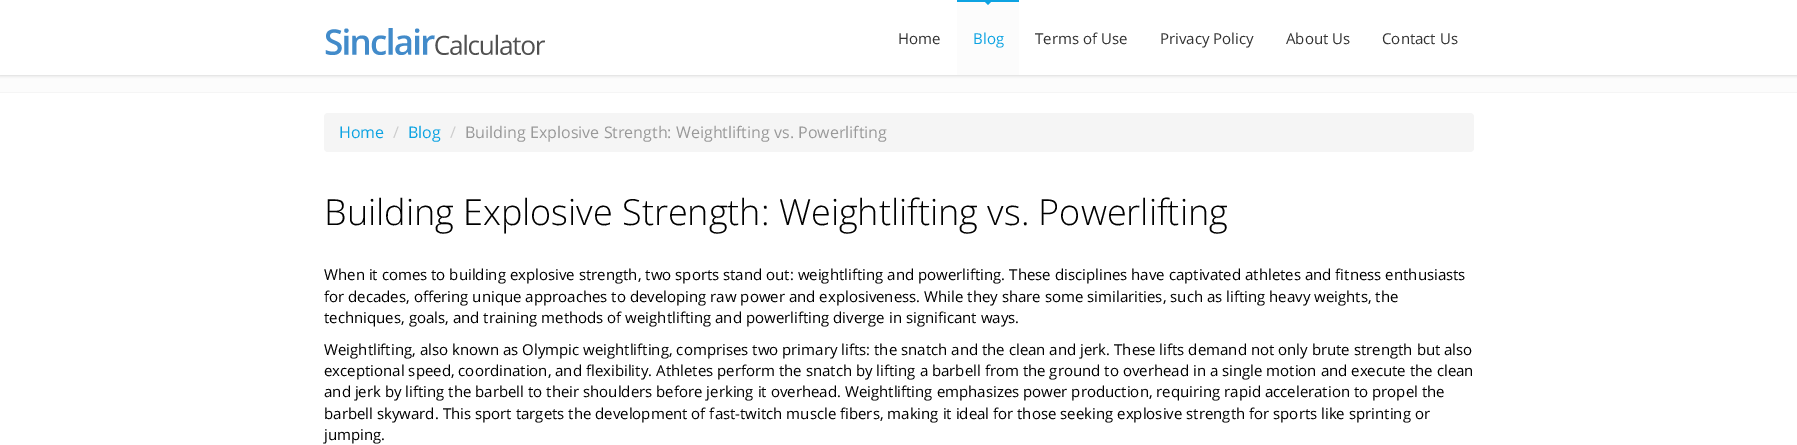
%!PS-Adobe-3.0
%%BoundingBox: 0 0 1797 445
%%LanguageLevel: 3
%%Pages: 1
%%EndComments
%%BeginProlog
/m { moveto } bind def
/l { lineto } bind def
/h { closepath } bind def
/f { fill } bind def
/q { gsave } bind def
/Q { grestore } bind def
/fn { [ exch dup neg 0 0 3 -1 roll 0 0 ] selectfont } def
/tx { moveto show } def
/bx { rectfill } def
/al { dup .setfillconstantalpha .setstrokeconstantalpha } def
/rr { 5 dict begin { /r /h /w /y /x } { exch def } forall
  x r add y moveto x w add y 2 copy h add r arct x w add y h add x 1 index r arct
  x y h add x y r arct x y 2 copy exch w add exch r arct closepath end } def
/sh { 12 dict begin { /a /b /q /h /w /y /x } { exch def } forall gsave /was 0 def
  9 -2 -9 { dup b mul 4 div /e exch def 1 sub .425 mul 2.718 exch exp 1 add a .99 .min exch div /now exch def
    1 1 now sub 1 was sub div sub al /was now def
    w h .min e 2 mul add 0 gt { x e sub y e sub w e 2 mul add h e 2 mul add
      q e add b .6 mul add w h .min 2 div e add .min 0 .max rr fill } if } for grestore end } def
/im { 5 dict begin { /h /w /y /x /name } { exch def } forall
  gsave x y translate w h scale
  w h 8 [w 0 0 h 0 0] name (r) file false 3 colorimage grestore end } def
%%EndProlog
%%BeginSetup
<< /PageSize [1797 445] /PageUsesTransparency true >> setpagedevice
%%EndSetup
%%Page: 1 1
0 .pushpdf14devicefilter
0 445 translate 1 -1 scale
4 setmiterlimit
1 setgray
0 0 1797 445 bx
0.988 setgray
0 76 1797 16 bx
0.961 setgray
0 75 1797 1 bx
q
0 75 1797 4 rectclip
0.867 setgray
0 1 1797 75 0 1.5 1 sh
Q
(image0.raw) 325 28 220 27 im
/OpenSans-Regular 15 fn
0.2 setgray
(Home) 898 44 tx
0.988 setgray
957 2 62 73 bx
0.051 0.639 0.886 setrgbcolor
957 0 62 2 bx
985 2 m 991 2 l 988 5 l h f
(Blog) 973 44 tx
0.2 setgray
(Terms of Use) 1035 44 tx
(Privacy Policy) 1160 44 tx
(About Us) 1286 44 tx
(Contact Us) 1382 44 tx
0.961 setgray
0 92 1797 1 bx
324 113 1150 39 4 rr f
/OpenSans-Regular 16 fn
0.051 0.639 0.886 setrgbcolor
(Home) 339 138 tx
0.8 setgray
(/) 393 138 tx
0.051 0.639 0.886 setrgbcolor
(Blog) 408 138 tx
0.8 setgray
(/) 450 138 tx
0.6 setgray
(Building Explosive Strength: Weightlifting vs. Powerlifting) 465 138 tx
/OpenSans-Light 36 fn
0 setgray
(Building Explosive Strength: Weightlifting vs. Powerlifting) 324 225 tx
/OpenSans-Regular 15 fn
(When it comes to building explosive strength, two sports stand out: weightlifting and powerlifting. These disciplines have captivated athletes and fitness enthusiasts) 324 280 tx
(for decades, offering unique approaches to developing raw power and explosiveness. While they share some similarities, such as lifting heavy weights, the) 324 302 tx
(techniques, goals, and training methods of weightlifting and powerlifting diverge in significant ways.) 324 323 tx
(Weightlifting, also known as Olympic weightlifting, comprises two primary lifts: the snatch and the clean and jerk. These lifts demand not only brute strength but also) 324 355 tx
(exceptional speed, coordination, and flexibility. Athletes perform the snatch by lifting a barbell from the ground to overhead in a single motion and execute the clean) 324 376 tx
(and jerk by lifting the barbell to their shoulders before jerking it overhead. Weightlifting emphasizes power production, requiring rapid acceleration to propel the) 324 397 tx
(barbell skyward. This sport targets the development of fast-twitch muscle fibers, making it ideal for those seeking explosive strength for sports like sprinting or) 324 419 tx
(jumping.) 324 440 tx
.poppdf14devicefilter showpage
%%EOF
